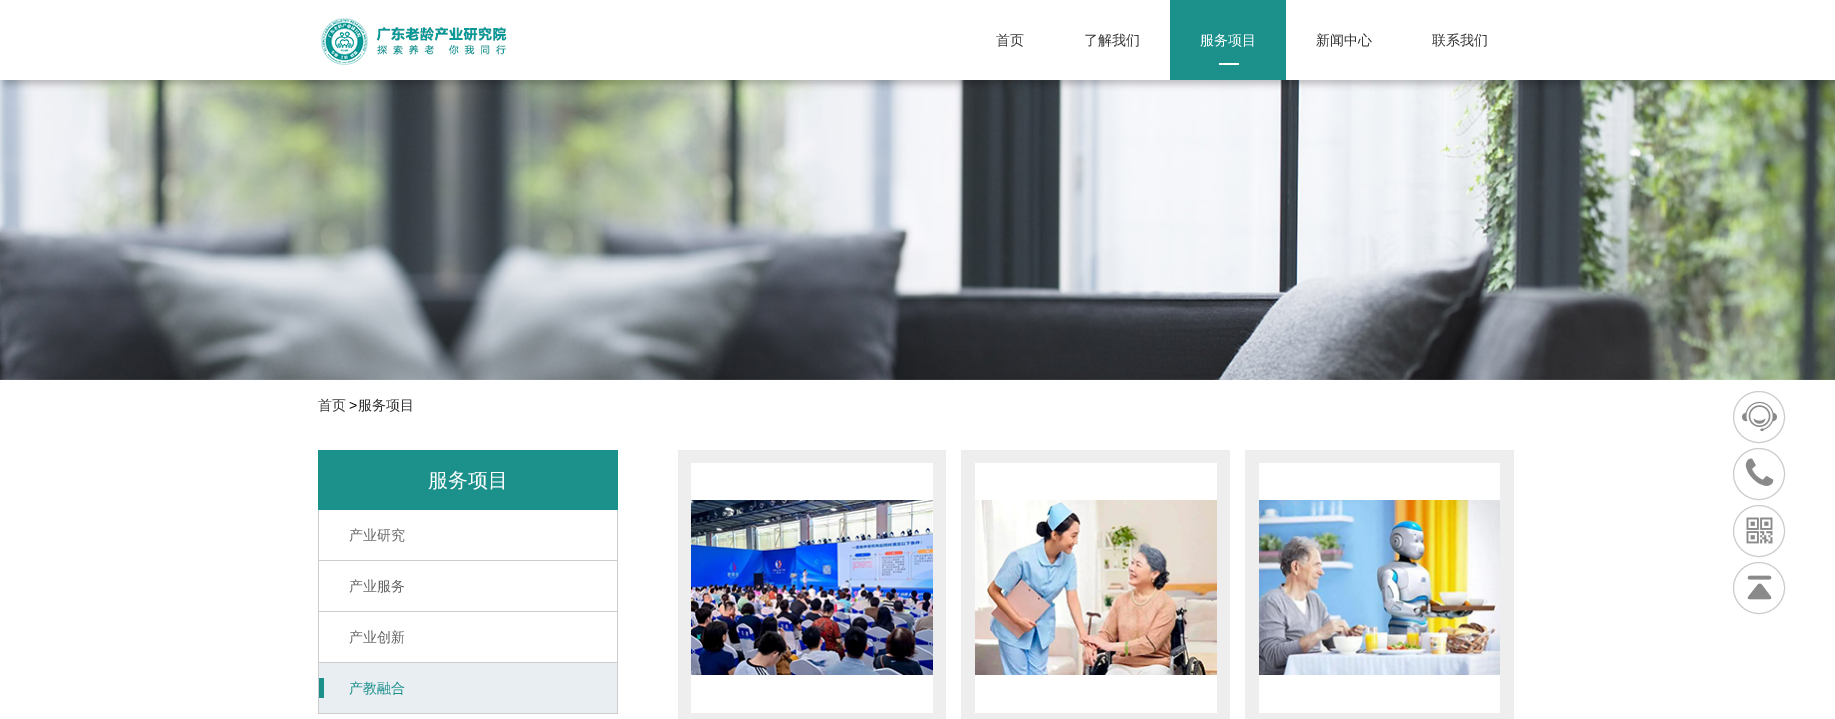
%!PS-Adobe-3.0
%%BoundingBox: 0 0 1835 719
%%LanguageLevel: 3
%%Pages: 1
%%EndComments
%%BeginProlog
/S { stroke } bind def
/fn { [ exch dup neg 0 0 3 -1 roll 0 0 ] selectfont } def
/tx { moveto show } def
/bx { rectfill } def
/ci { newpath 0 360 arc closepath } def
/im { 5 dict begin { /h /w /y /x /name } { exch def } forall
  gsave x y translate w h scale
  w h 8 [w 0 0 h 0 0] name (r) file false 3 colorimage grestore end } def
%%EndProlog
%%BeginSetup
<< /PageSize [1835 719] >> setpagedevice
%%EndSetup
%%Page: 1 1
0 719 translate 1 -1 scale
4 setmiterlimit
1 setgray
0 0 1835 719 bx
(image0.raw) 321 18 186 47 im
/WenQuanYiZenHei-Medium 14 fn
0.2 setgray
(首页) 996 45 tx
(了解我们) 1084 45 tx
0.11 0.569 0.549 setrgbcolor
1170 0 116 80 bx
1 setgray
(服务项目) 1200 45 tx
1219 63 20 2 bx
0.2 setgray
(新闻中心) 1316 45 tx
(联系我们) 1432 45 tx
(image1.raw) 0 80 1835 300 im
(首页) 318 410 tx
/LiberationSans-Regular 14 fn
0 setgray
(>) 349 410 tx
/WenQuanYiZenHei-Medium 14 fn
0.2 setgray
(服务项目) 358 410 tx
0.8 setgray
1759 417 25.5 ci S
(image2.raw) 1742 401 35 31 im
1759 474 25.5 ci S
(image3.raw) 1745 458 29 28 im
1759 531 25.5 ci S
(image4.raw) 1746 517 27 27 im
1759 588 25.5 ci S
(image5.raw) 1747 575 25 25 im
0.11 0.569 0.549 setrgbcolor
318 450 300 60 bx
/WenQuanYiZenHei-Medium 20 fn
1 setgray
(服务项目) 428 487 tx
0.8 setgray
617 510 1 204 bx
318 560 300 1 bx
318 510 1 51 bx
/WenQuanYiZenHei-Medium 14 fn
0.4 setgray
(产业研究) 349 540 tx
0.8 setgray
318 611 300 1 bx
318 561 1 51 bx
0.4 setgray
(产业服务) 349 591 tx
0.8 setgray
318 662 300 1 bx
318 612 1 51 bx
0.4 setgray
(产业创新) 349 642 tx
0.91 0.933 0.949 setrgbcolor
319 663 298 50 bx
0.8 setgray
318 713 300 1 bx
318 663 1 51 bx
0.11 0.569 0.549 setrgbcolor
319 678 5 20 bx
(产教融合) 349 693 tx
0.933 setgray
678 450 268 269 bx
1 setgray
691 463 242 250 bx
(image6.raw) 691 500 242 175 im
0.933 setgray
961 450 269 269 bx
1 setgray
975 463 242 250 bx
(image7.raw) 975 500 242 175 im
0.933 setgray
1245 450 269 269 bx
1 setgray
1259 463 241 250 bx
(image8.raw) 1259 500 241 175 im
showpage
%%EOF
